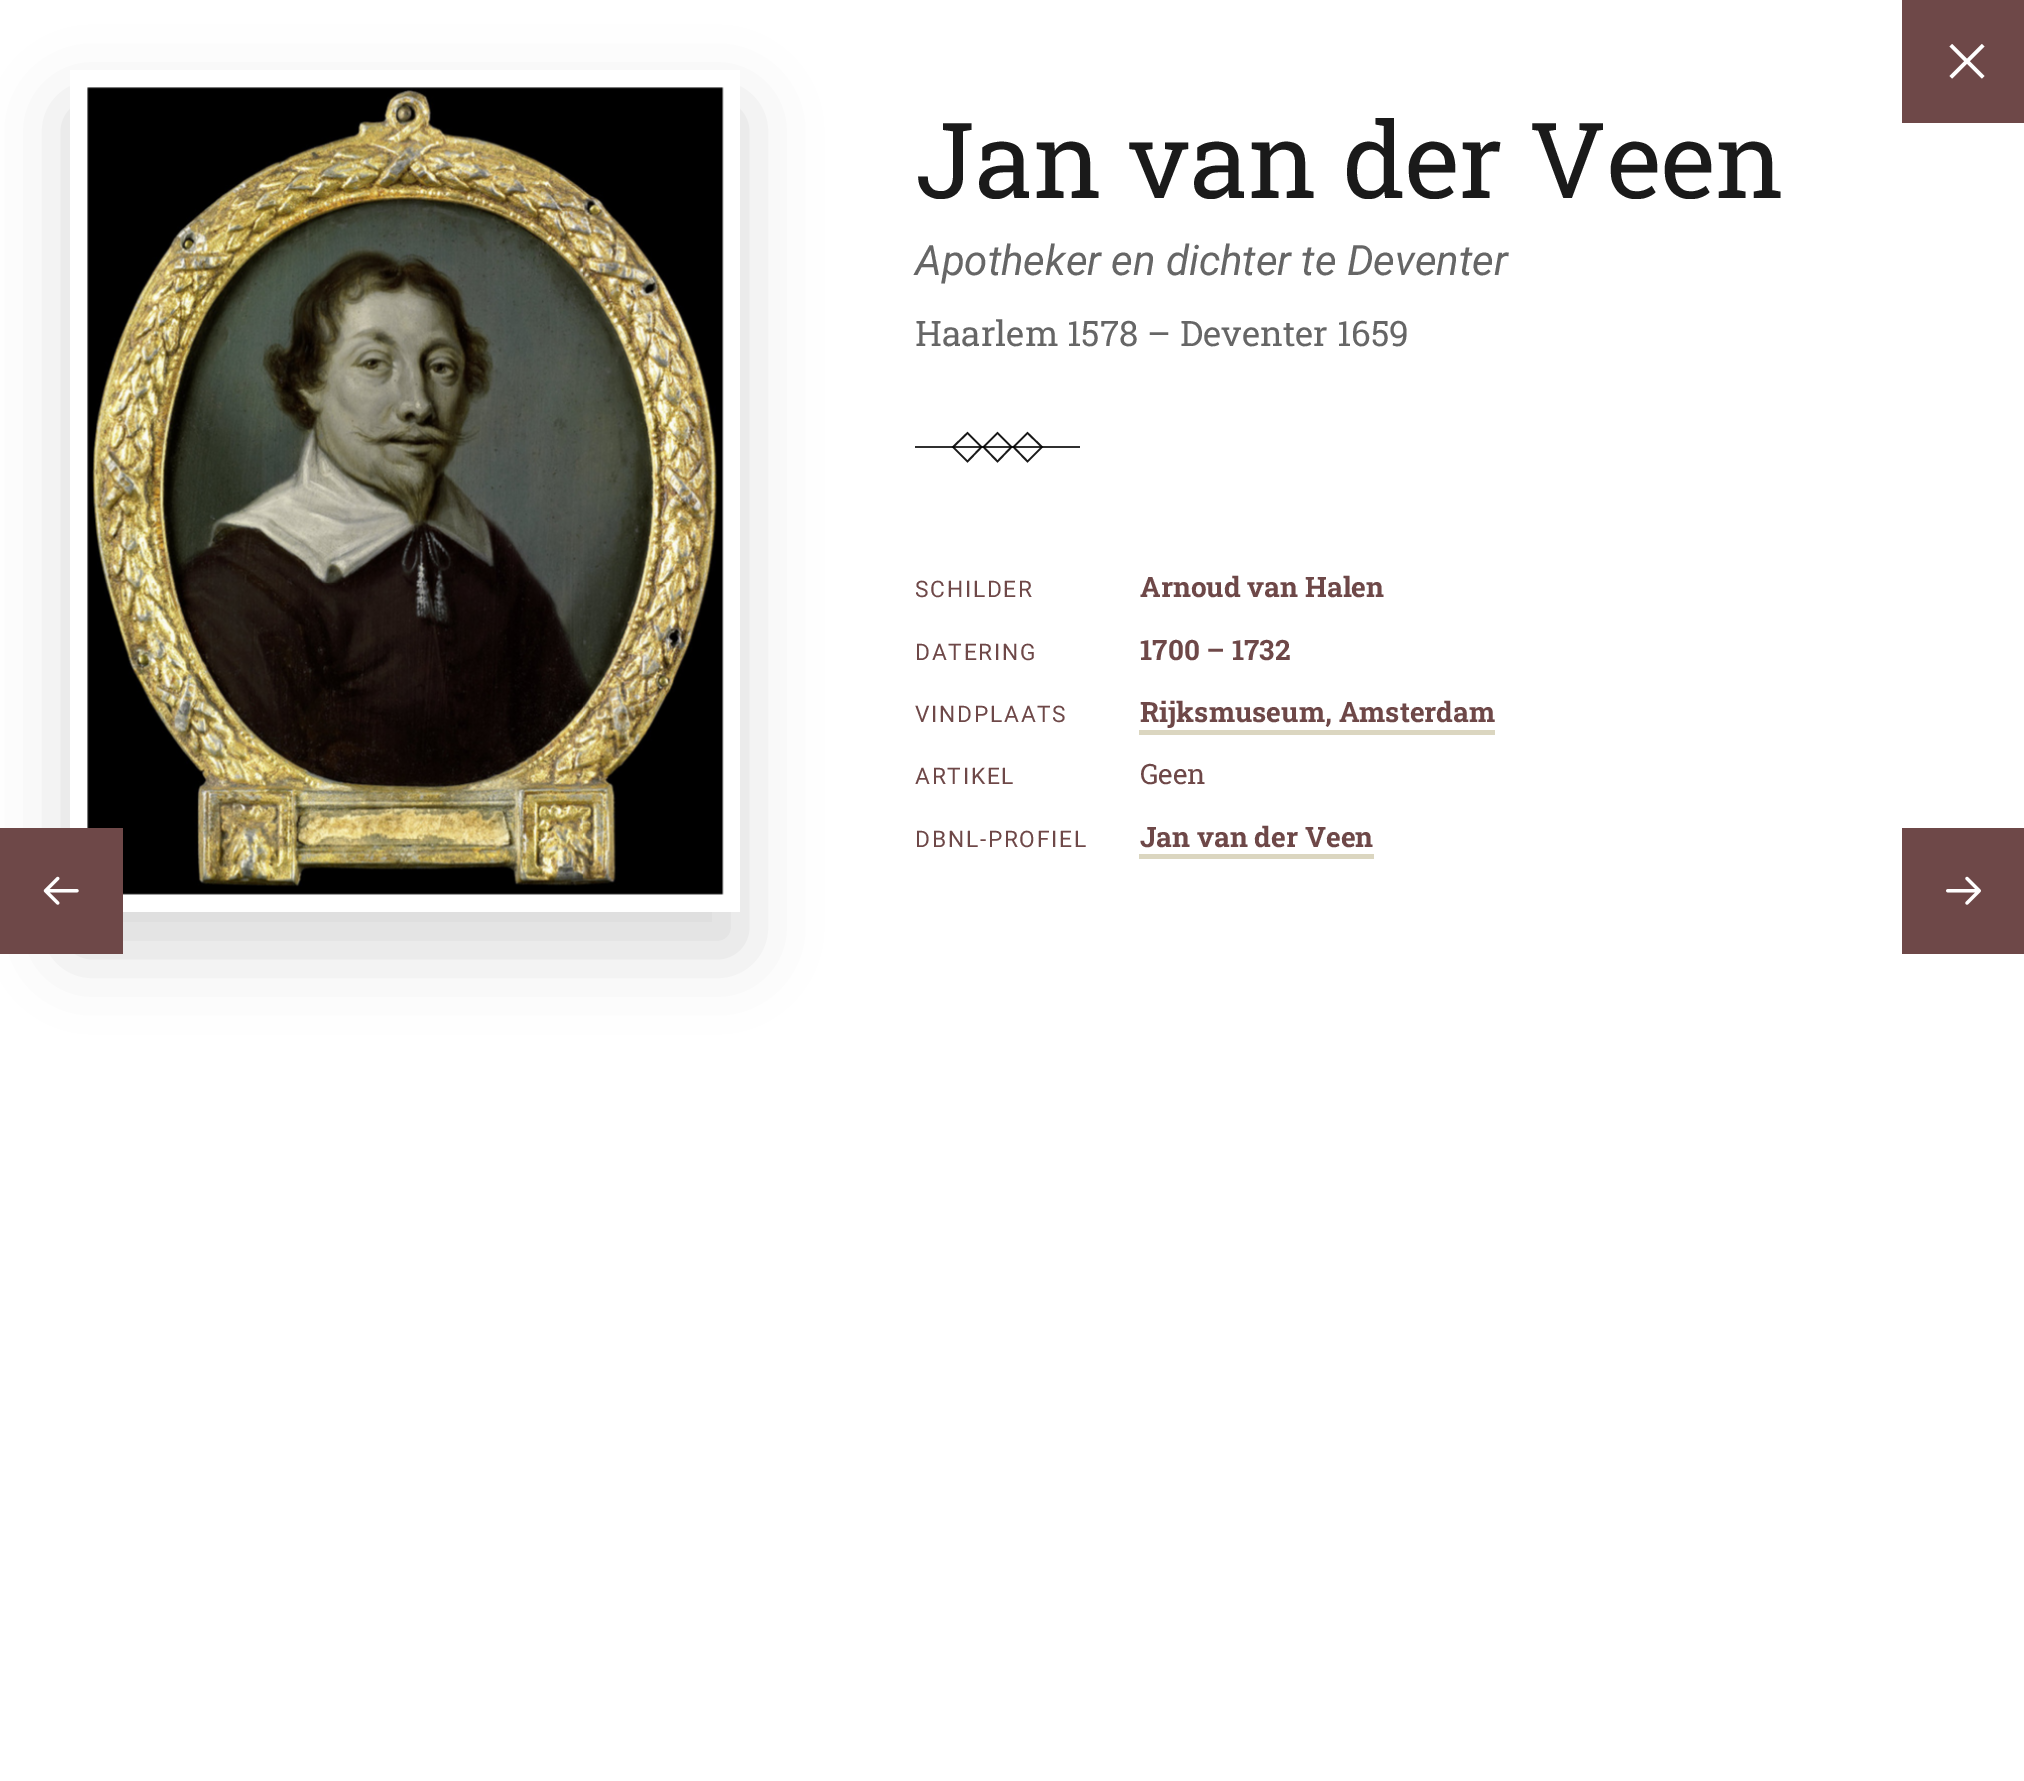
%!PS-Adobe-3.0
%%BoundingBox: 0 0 2024 1781
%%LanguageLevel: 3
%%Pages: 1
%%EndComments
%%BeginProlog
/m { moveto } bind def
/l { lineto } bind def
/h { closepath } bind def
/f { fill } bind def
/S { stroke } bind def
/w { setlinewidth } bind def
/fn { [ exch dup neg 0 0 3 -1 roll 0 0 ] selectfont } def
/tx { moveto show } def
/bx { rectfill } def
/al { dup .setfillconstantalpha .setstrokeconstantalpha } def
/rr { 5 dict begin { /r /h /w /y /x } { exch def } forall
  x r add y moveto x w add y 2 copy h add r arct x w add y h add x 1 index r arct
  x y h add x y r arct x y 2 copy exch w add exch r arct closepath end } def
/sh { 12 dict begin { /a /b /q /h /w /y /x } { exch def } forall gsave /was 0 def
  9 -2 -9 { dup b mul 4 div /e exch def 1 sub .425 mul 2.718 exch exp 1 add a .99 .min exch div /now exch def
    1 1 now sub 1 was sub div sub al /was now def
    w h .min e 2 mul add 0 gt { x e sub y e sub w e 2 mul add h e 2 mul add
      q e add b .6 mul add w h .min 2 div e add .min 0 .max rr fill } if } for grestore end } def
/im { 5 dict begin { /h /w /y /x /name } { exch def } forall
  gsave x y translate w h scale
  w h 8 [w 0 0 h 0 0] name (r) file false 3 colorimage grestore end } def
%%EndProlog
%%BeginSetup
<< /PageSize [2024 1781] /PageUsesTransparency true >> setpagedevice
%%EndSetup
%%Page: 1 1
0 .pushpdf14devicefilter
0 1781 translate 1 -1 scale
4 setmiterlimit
1 setgray
0 0 2024 1781 bx
0 setgray
70 109 670 841 0 37.5 0.15 sh
1 setgray
70 70 670 842 bx
(image0.raw) 87 87 637 808 im
0.431 0.282 0.282 setrgbcolor
1902 0 122 123 bx
1 setgray
1952 44 m 1984.5 76 l 1982 78.5 l 1949.5 46.5 l h f
1949.5 76 m 1982 44 l 1984.5 46.5 l 1952 78.5 l h f
/RobotoSlab-Regular 105 fn
0.102 setgray
(Jan van der Veen) 915 198 tx
/Roboto-Italic 42 fn
0.4 setgray
(Apotheker en dichter te Deventer) 915 275 tx
/RobotoSlab-Regular 35 fn
(Haarlem 1578 – Deventer 1659) 915 346 tx
0.188 setgray
915 446 165 2 bx
0.9 al
0 setgray
1.7 w
981.5 447 m 967.5 461.5 l 953 447 l 967.5 433 l h S
1011.5 447 m 997.5 461.5 l 983.5 447 l 997.5 433 l h S
1042 447 m 1027.5 461.5 l 1013.5 447 l 1027.5 433 l h S
/Roboto-Regular 22.75 fn
1 al
0.431 0.282 0.282 setrgbcolor
915 597 m 1.75 0 (SCHILDER) ashow
/RobotoSlab-Bold 28 fn
(Arnoud van Halen) 1140 597 tx
/Roboto-Regular 22.75 fn
915 660 m 1.75 0 (DATERING) ashow
/RobotoSlab-Bold 28 fn
(1700 – 1732) 1140 660 tx
/Roboto-Regular 22.75 fn
915 722 m 1.75 0 (VINDPLAATS) ashow
/RobotoSlab-Bold 28 fn
(Rijksmuseum, Amsterdam) 1140 722 tx
0.859 0.839 0.753 setrgbcolor
1139 730 356 5 bx
/Roboto-Regular 22.75 fn
0.431 0.282 0.282 setrgbcolor
915 784 m 1.75 0 (ARTIKEL) ashow
/RobotoSlab-Regular 28 fn
(Geen) 1140 784 tx
/Roboto-Regular 22.75 fn
915 847 m 1.75 0 (DBNL-PROFIEL) ashow
/RobotoSlab-Bold 28 fn
(Jan van der Veen) 1140 847 tx
0.859 0.839 0.753 setrgbcolor
1139 854 235 5 bx
0.431 0.282 0.282 setrgbcolor
0 828 123 126 bx
(image1.raw) 43 876 36 29 im
1902 828 122 126 bx
(image2.raw) 1946 876 35 29 im
.poppdf14devicefilter showpage
%%EOF
